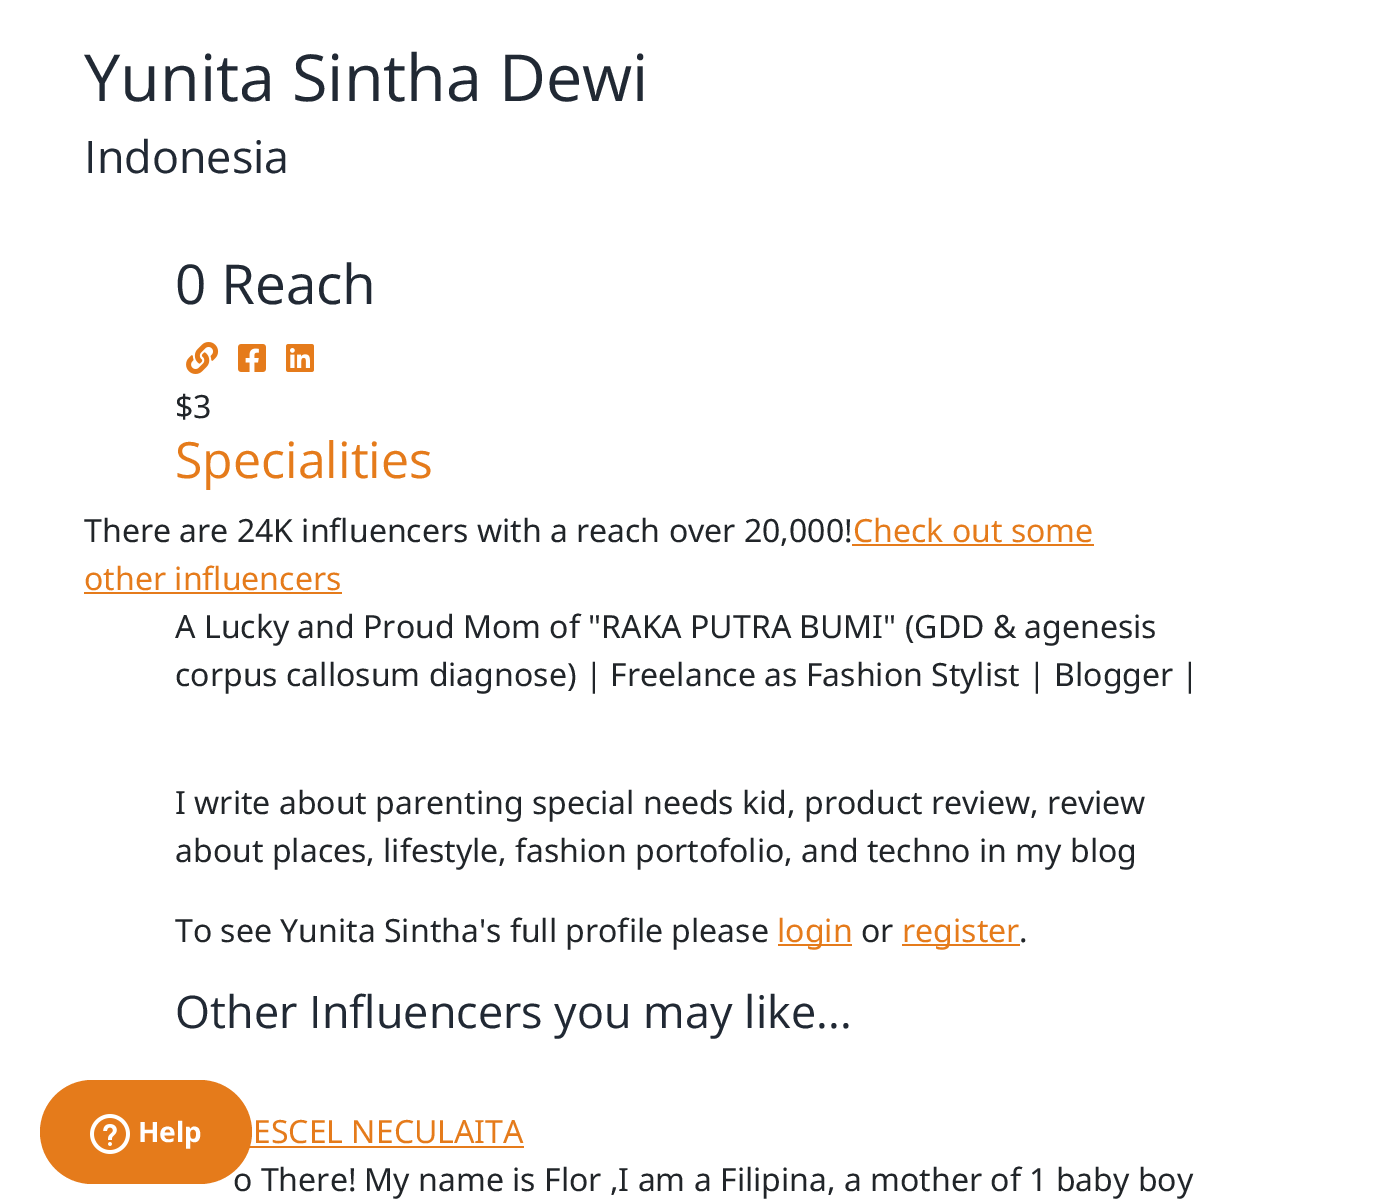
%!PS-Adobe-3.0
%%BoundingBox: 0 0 1381 1200
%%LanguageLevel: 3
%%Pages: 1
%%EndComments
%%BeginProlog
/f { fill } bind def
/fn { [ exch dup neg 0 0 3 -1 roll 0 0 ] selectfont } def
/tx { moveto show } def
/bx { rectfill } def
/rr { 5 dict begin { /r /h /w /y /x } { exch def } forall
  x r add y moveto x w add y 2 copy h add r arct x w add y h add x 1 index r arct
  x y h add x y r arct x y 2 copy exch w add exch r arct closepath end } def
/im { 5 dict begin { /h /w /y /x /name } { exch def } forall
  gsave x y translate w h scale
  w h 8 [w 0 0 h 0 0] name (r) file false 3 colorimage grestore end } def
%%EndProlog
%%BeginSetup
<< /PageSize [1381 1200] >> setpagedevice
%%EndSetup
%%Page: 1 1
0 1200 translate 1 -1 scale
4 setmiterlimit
1 setgray
0 0 1381 1200 bx
/OpenSans-Regular 64.75 fn
0.129 0.161 0.204 setrgbcolor
(Yunita Sintha Dewi) 84 101 tx
/OpenSans-Regular 45 fn
(Indonesia) 84 173 tx
/OpenSans-Regular 55 fn
(0 Reach) 175 304 tx
(image0.raw) 186 342 33 32 im
(image1.raw) 238 344 28 28 im
(image2.raw) 286 344 28 28 im
/NotoSans-Regular 32 fn
0.129 0.145 0.161 setrgbcolor
($3) 175 418 tx
/OpenSans-Regular 50 fn
0.898 0.482 0.106 setrgbcolor
(Specialities) 175 478 tx
/NotoSans-Regular 32 fn
0.129 0.145 0.161 setrgbcolor
(There are 24K influencers with a reach over 20,000!) 84 542 tx
0.898 0.482 0.106 setrgbcolor
(Check out some) 853 542 tx
852 544 242 2 bx
(other influencers) 84 590 tx
84 592 258 2 bx
0.129 0.145 0.161 setrgbcolor
(A Lucky and Proud Mom of "RAKA PUTRA BUMI" \(GDD & agenesis) 175 638 tx
(corpus callosum diagnose\) | Freelance as Fashion Stylist | Blogger |) 175 686 tx
(I write about parenting special needs kid, product review, review) 175 814 tx
(about places, lifestyle, fashion portofolio, and techno in my blog) 175 862 tx
(To see Yunita Sintha's full profile please) 175 942 tx
0.898 0.482 0.106 setrgbcolor
778 944 74 2 bx
(login) 777 942 tx
0.129 0.145 0.161 setrgbcolor
(or) 861 942 tx
0.898 0.482 0.106 setrgbcolor
902 944 118 2 bx
(register) 902 942 tx
0.129 0.145 0.161 setrgbcolor
(.) 1019 942 tx
/OpenSans-Regular 45 fn
0.129 0.161 0.204 setrgbcolor
(Other Influencers you may like...) 175 1028 tx
/NotoSans-Regular 32 fn
0.898 0.482 0.106 setrgbcolor
(ESCEL NECULAITA) 253 1143 tx
249 1146 275 2 bx
0.129 0.145 0.161 setrgbcolor
(o There! My name is Flor ,I am a Filipina, a mother of 1 baby boy) 233 1191 tx
0.898 0.482 0.106 setrgbcolor
40 1080 212 104 52 rr f
(image3.raw) 90 1114 40 40 im
/NotoSans-Bold 28 fn
1 setgray
(Help) 138 1142 tx
showpage
%%EOF
